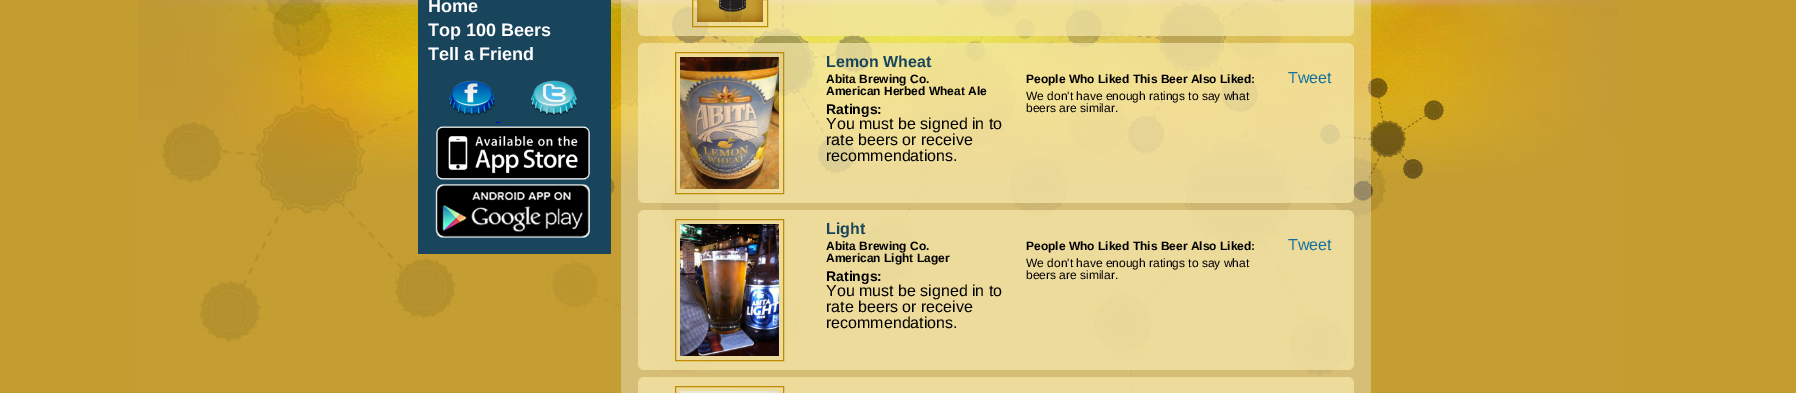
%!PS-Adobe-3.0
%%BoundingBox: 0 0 1796 393
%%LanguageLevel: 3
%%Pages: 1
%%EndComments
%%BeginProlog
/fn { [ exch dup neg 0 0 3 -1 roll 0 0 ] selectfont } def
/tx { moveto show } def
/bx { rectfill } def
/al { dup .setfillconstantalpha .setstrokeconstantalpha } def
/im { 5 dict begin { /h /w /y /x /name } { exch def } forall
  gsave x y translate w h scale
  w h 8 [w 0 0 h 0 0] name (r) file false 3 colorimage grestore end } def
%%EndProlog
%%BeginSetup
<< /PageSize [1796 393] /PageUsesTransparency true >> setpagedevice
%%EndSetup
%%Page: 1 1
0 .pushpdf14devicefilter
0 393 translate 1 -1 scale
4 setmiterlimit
0.769 0.616 0.192 setrgbcolor
0 0 1796 393 bx
(image0.raw) 138 0 1480 393 im
0.098 0.271 0.361 setrgbcolor
418 0 193 240 bx
/LiberationSans-Bold 18 fn
1 setgray
(Home) 428 12 tx
(Top 100 Beers) 428 36 tx
(Tell a Friend) 428 60 tx
(image1.raw) 449 80 46 36 im
(image2.raw) 530 80 47 36 im
0 0 0.933 setrgbcolor
496 122 4 1 bx
(image3.raw) 436 126 154 54 im
(image4.raw) 435 184 155 54 im
0.098 0.271 0.365 setrgbcolor
418 240 193 14 bx
0.33 al
1 setgray
621 0 750 393 bx
0.73 al
0.957 0.902 0.655 setrgbcolor
638 0 716 30 bx
1 al
0.753 0.541 0.008 setrgbcolor
692.5 -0.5 75 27 rectstroke
(image5.raw) 697 0 66 22 im
(image6.raw) 638 30 716 6 im
(image7.raw) 638 43 716 6 im
0.73 al
0.957 0.902 0.655 setrgbcolor
638 49 716 148 bx
1 al
0.753 0.541 0.008 setrgbcolor
675.5 52.5 108 141 rectstroke
(image8.raw) 680 57 99 132 im
/LiberationSans-Bold 16 fn
0.098 0.271 0.361 setrgbcolor
(Lemon Wheat) 826 67 tx
/LiberationSans-Bold 12 fn
0 setgray
(Abita Brewing Co.) 826 83 tx
(American Herbed Wheat Ale) 826 95 tx
/LiberationSans-Bold 14 fn
(Ratings:) 826 114 tx
/LiberationSans-Regular 16 fn
(You must be signed in to) 826 129 tx
(rate beers or receive) 826 145 tx
(recommendations.) 826 161 tx
/LiberationSans-Bold 12 fn
(People Who Liked This Beer Also Liked:) 1026 83 tx
/LiberationSans-Regular 12 fn
(We don't have enough ratings to say what) 1026 100 tx
(beers are similar.) 1026 112 tx
/LiberationSans-Regular 16 fn
0.071 0.435 0.616 setrgbcolor
(Tweet) 1288 83 tx
(image9.raw) 638 197 716 6 im
(image10.raw) 638 210 716 6 im
0.73 al
0.957 0.902 0.655 setrgbcolor
638 216 716 148 bx
1 al
0.753 0.541 0.008 setrgbcolor
675.5 219.5 108 141 rectstroke
(image11.raw) 680 224 99 132 im
/LiberationSans-Bold 16 fn
0.098 0.271 0.361 setrgbcolor
(Light) 826 234 tx
/LiberationSans-Bold 12 fn
0 setgray
(Abita Brewing Co.) 826 250 tx
(American Light Lager) 826 262 tx
/LiberationSans-Bold 14 fn
(Ratings:) 826 281 tx
/LiberationSans-Regular 16 fn
(You must be signed in to) 826 296 tx
(rate beers or receive) 826 312 tx
(recommendations.) 826 328 tx
/LiberationSans-Bold 12 fn
(People Who Liked This Beer Also Liked:) 1026 250 tx
/LiberationSans-Regular 12 fn
(We don't have enough ratings to say what) 1026 267 tx
(beers are similar.) 1026 279 tx
/LiberationSans-Regular 16 fn
0.071 0.435 0.616 setrgbcolor
(Tweet) 1288 250 tx
(image12.raw) 638 364 716 6 im
(image13.raw) 638 377 716 6 im
0.73 al
0.957 0.902 0.655 setrgbcolor
638 383 716 10 bx
1 al
0.753 0.541 0.008 setrgbcolor
675.5 386.5 108 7 rectstroke
(image14.raw) 680 391 99 2 im
.poppdf14devicefilter showpage
%%EOF
